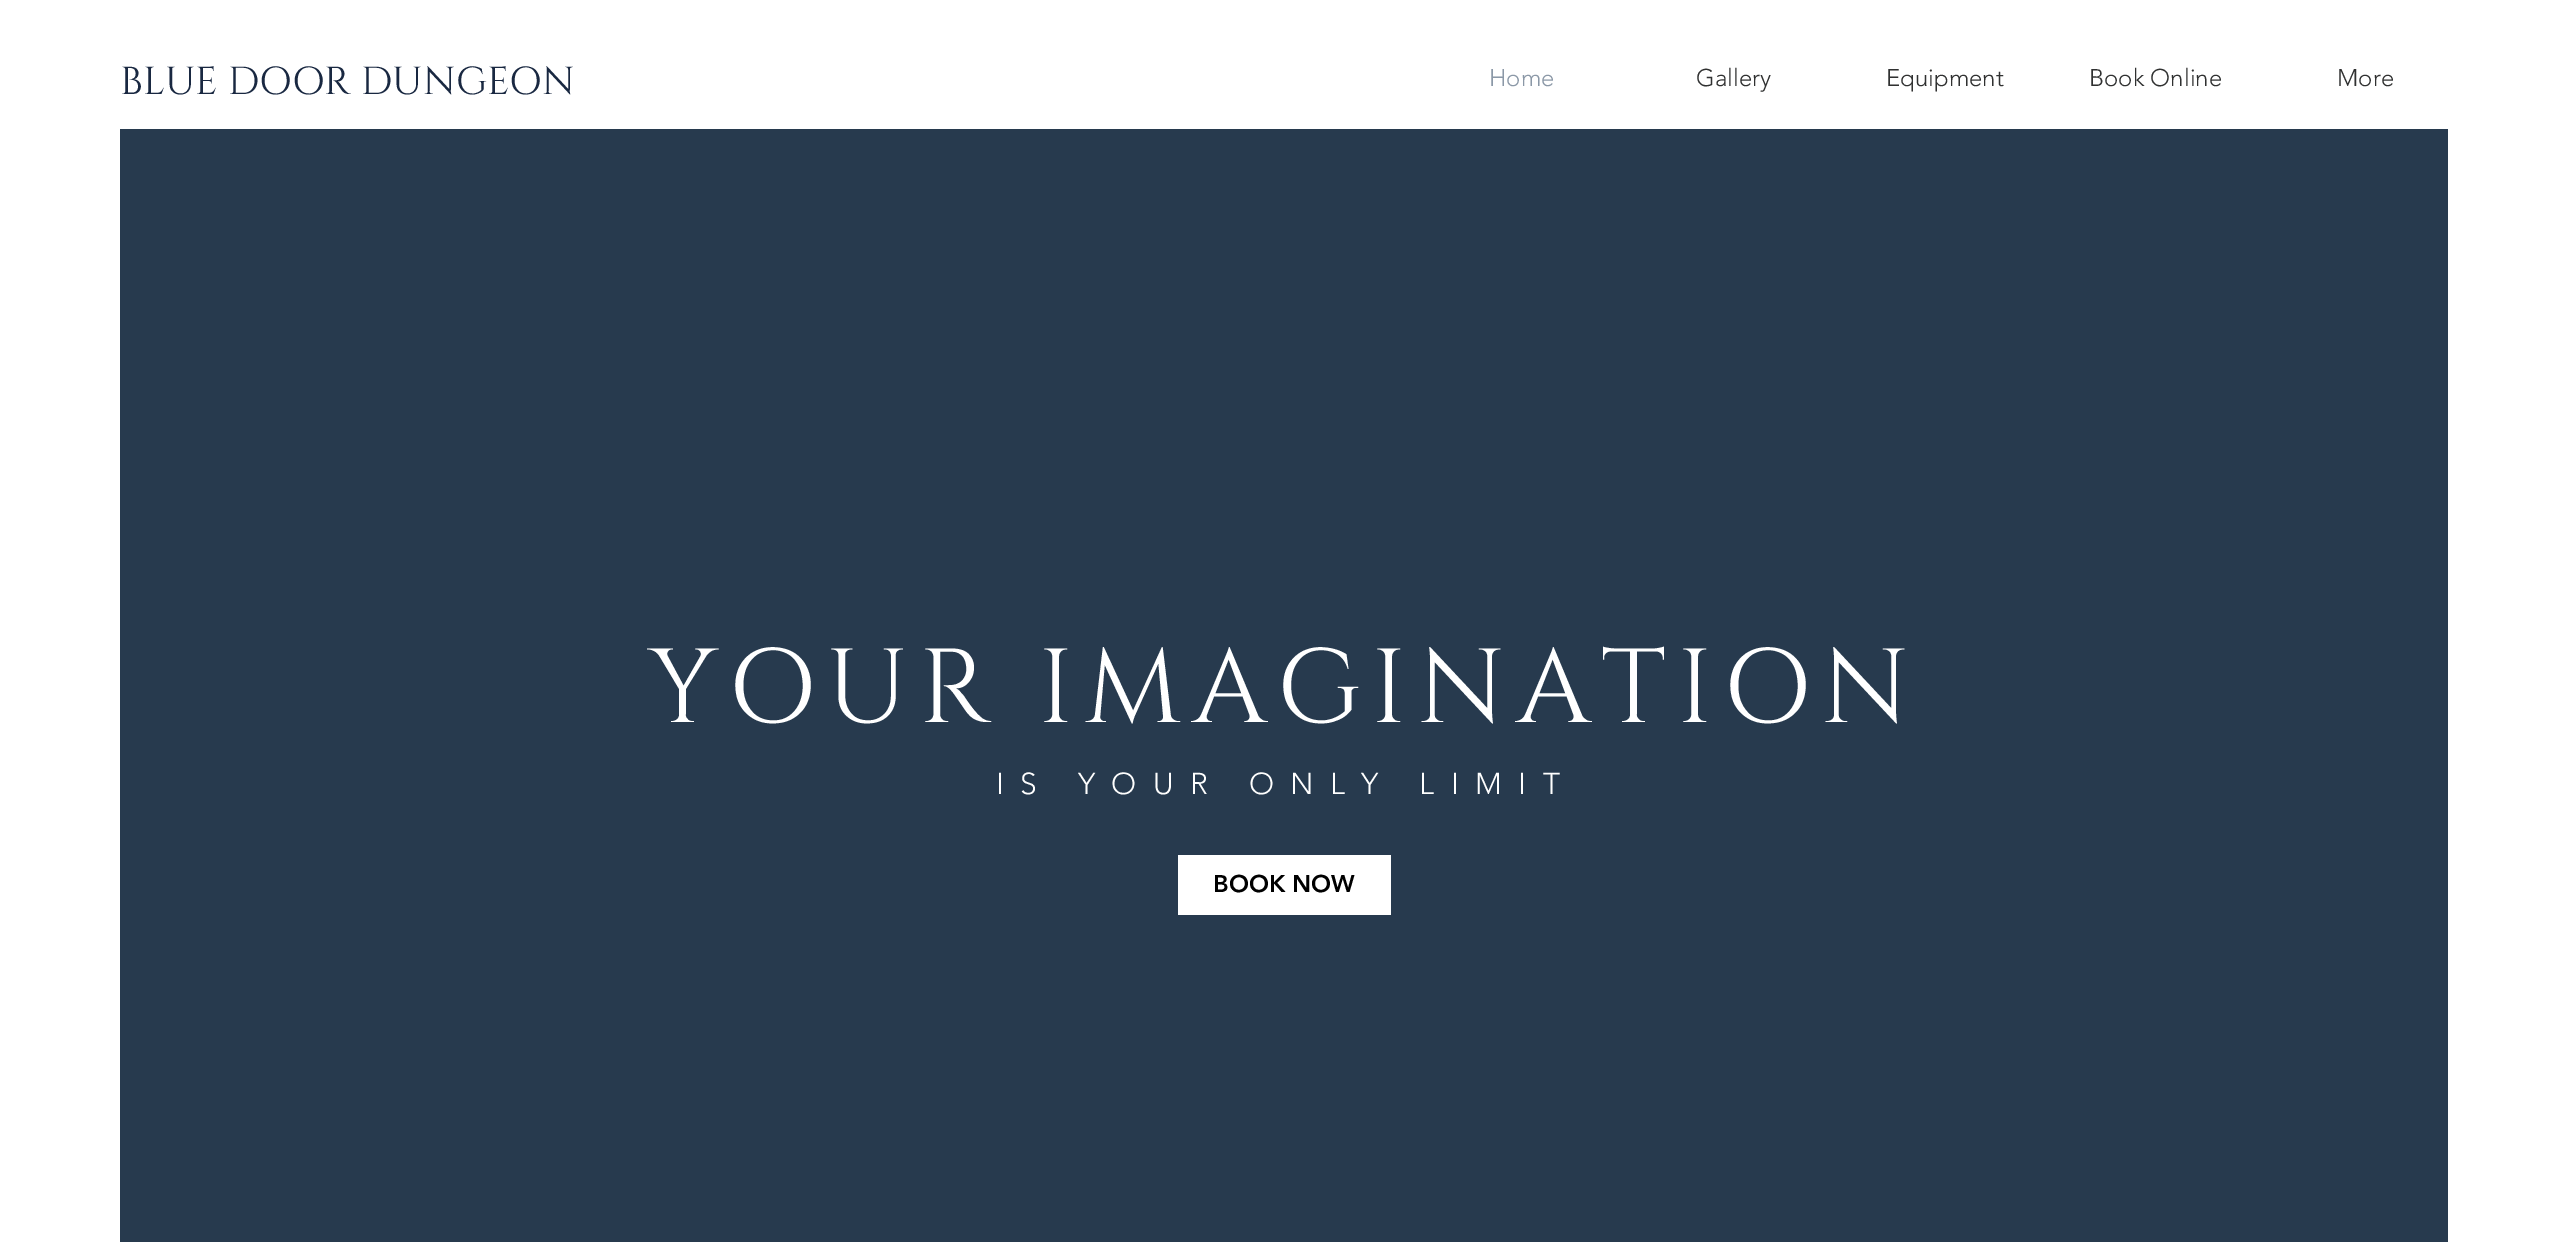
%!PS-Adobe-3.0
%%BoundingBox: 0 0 2567 1242
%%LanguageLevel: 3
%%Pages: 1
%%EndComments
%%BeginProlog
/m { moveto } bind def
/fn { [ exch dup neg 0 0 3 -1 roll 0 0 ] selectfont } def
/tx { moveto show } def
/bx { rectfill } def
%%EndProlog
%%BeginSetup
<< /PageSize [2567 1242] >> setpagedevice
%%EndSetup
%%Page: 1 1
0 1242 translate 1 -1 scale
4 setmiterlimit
1 setgray
0 0 2567 1242 bx
/Cinzel-Regular 39 fn
0.098 0.157 0.255 setrgbcolor
(BLUE DOOR DUNGEON) 120 94 tx
/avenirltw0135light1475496-Light 24 fn
0.545 0.596 0.655 setrgbcolor
(Home) 1489 86 tx
0.188 0.192 0.192 setrgbcolor
(Gallery) 1696 86 tx
(Equipment) 1886 86 tx
(Book Online) 2089 86 tx
(More) 2337 86 tx
0.153 0.227 0.306 setrgbcolor
120 129 2328 1113 bx
/Cinzel-Regular 105 fn
1 setgray
648 722 m 10.5 0 (YOUR IMAGINATION) ashow
/avenirltw0135light1475496-Light 30 fn
996 794 m 16.5 0 (IS YOUR ONLY LIMIT) ashow
1178 855 213 60 bx
/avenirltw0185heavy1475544-Black 24 fn
0 setgray
(BOOK NOW) 1213 892 tx
showpage
%%EOF
